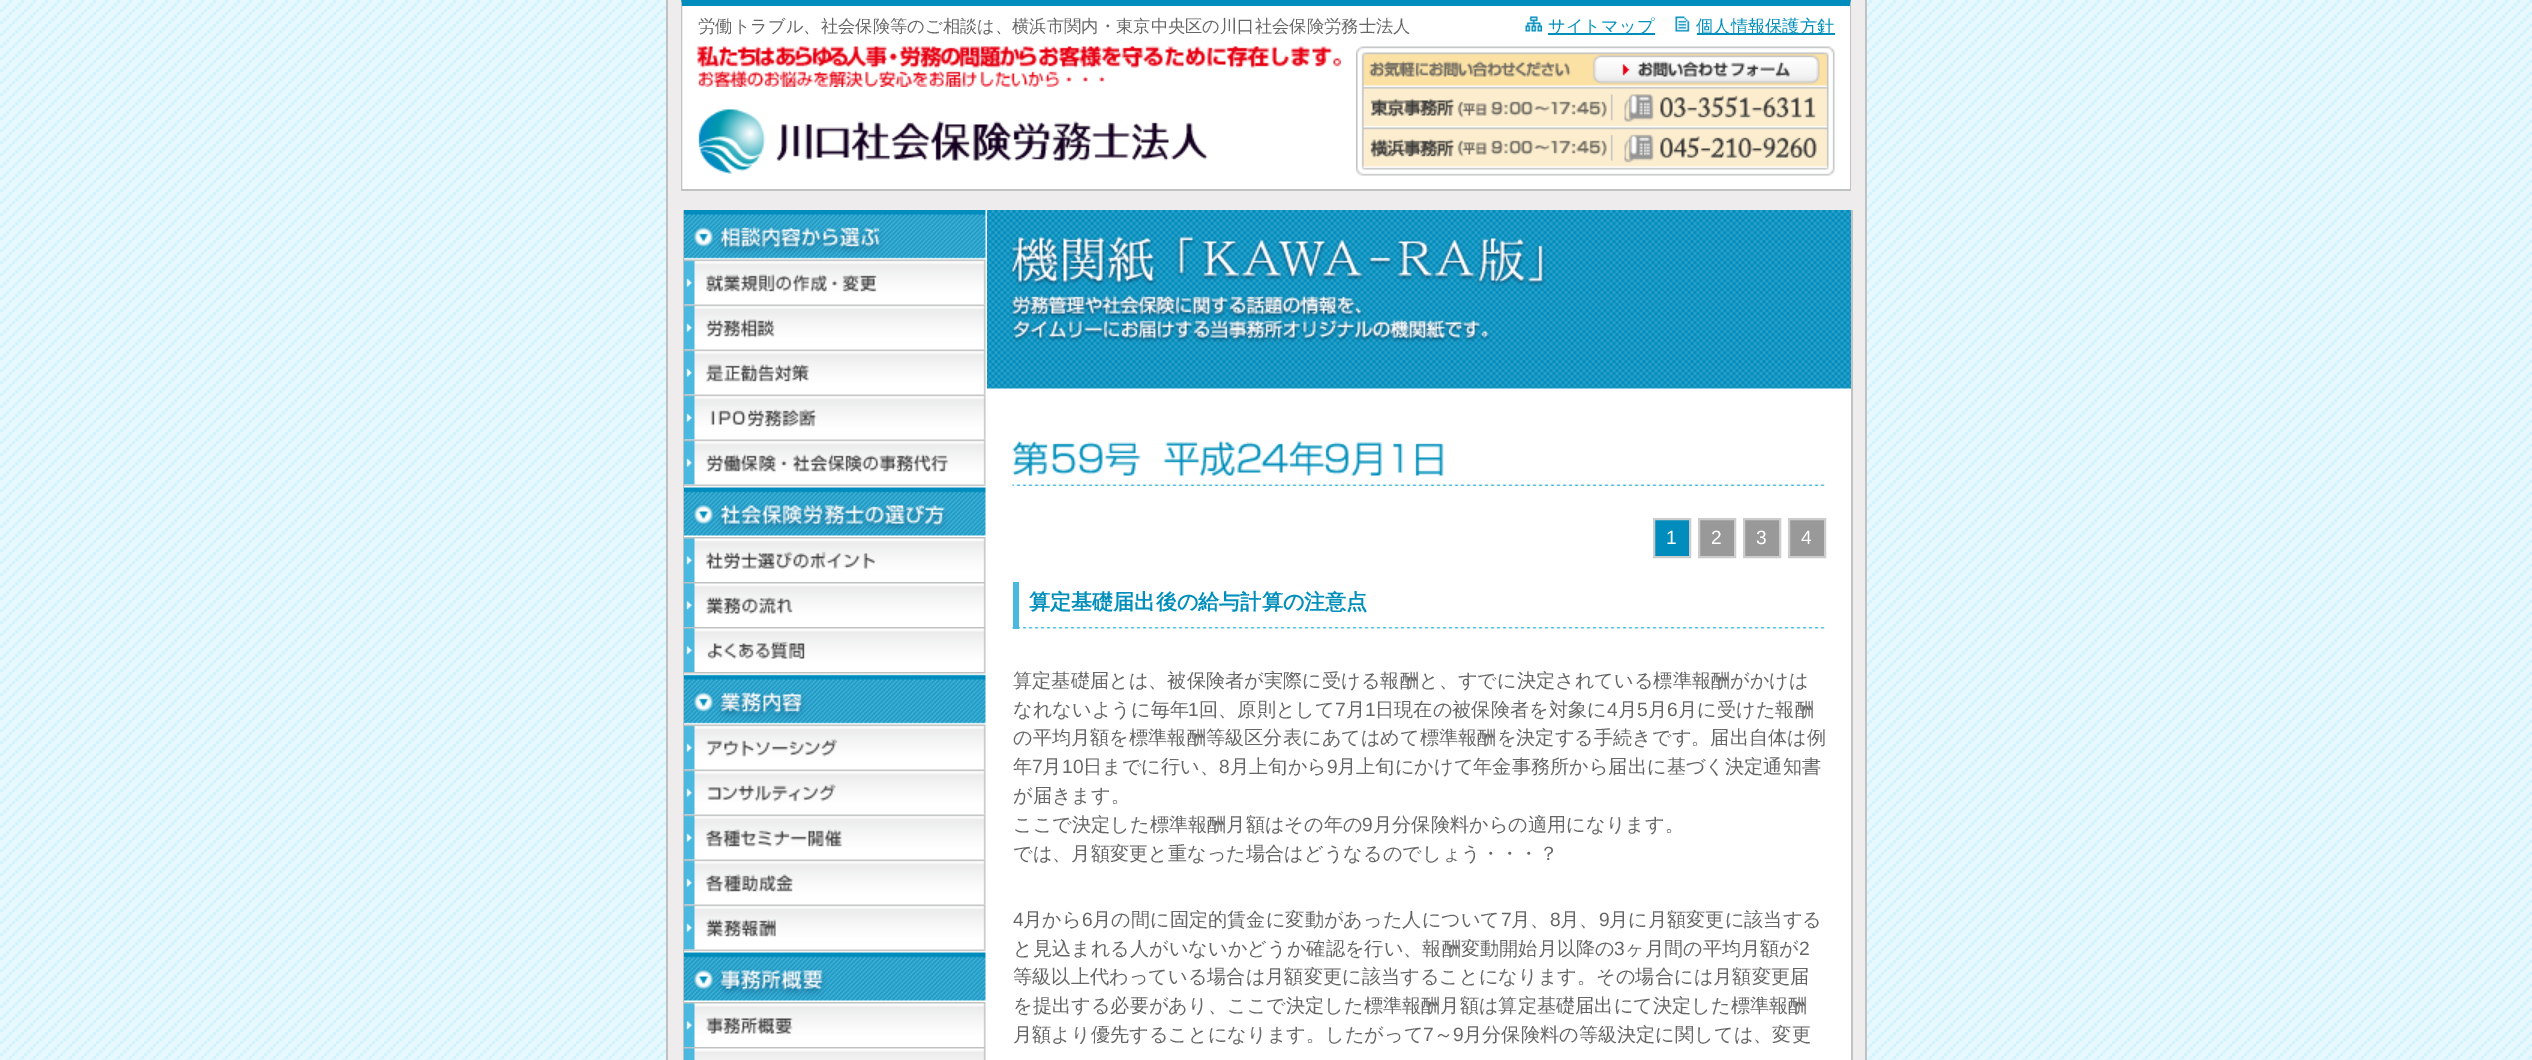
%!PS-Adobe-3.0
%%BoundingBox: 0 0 2532 1060
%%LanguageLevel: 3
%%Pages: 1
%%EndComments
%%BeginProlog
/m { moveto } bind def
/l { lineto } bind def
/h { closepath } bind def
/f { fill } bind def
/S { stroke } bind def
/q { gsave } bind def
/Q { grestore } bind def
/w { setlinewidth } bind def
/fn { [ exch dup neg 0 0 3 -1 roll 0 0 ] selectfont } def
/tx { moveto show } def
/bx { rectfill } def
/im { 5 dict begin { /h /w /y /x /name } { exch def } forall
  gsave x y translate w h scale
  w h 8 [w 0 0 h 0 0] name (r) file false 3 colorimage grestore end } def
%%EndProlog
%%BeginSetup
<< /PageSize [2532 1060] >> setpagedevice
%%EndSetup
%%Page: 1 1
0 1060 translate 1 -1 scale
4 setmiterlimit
1 setgray
0 0 2532 1060 bx
(image0.raw) 0 0 2532 1060 im
0.933 0.925 0.925 setrgbcolor
668 0 1197 1060 bx
0.753 0.757 0.757 setrgbcolor
1865 0 2 1060 bx
666 0 2 1060 bx
1 setgray
683 6 1167 183 bx
0 0.553 0.741 setrgbcolor
681 0 m 1851 0 l 1850 6 l 682 6 l h f
0.753 0.757 0.757 setrgbcolor
1851 0 m 1851 190 l 1850 189 l 1850 6 l h f
681 189 1170 2 bx
681 190 m 681 0 l 682 6 l 682 189 l h f
/WenQuanYiZenHei-Medium 17.3 fn
0.4 setgray
(労働トラブル、社会保険等のご相談は、横浜市関内・東京中央区の川口社会保険労務士法人) 698 32 tx
(image1.raw) 697 46 644 41 im
(image2.raw) 698 109 510 65 im
(image3.raw) 1525 16 17 16 im
0 0.561 0.733 setrgbcolor
1548 33 107 2 bx
(サイトマップ) 1548 32 tx
(image4.raw) 1675 16 15 16 im
1697 33 138 2 bx
(個人情報保護方針) 1696 32 tx
(image5.raw) 1356 46 479 130 im
1 setgray
685 210 1166 850 bx
0.753 0.757 0.757 setrgbcolor
1851 210 2 850 bx
683 210 2 850 bx
(image6.raw) 684 210 302 50 im
(image7.raw) 684 259 302 46 im
(image8.raw) 684 304 302 46 im
(image9.raw) 684 349 302 46 im
(image10.raw) 684 394 302 46 im
(image11.raw) 684 439 302 46 im
(image12.raw) 684 484 302 53 im
(image13.raw) 684 537 302 45 im
(image14.raw) 684 582 302 45 im
(image15.raw) 684 627 302 45 im
(image16.raw) 684 672 302 53 im
(image17.raw) 684 724 302 46 im
(image18.raw) 684 769 302 46 im
(image19.raw) 684 814 302 46 im
(image20.raw) 684 859 302 46 im
(image21.raw) 684 904 302 46 im
(image22.raw) 684 949 302 53 im
(image23.raw) 684 1002 302 45 im
(image24.raw) 684 1047 302 13 im
(image25.raw) 987 210 864 179 im
(image26.raw) 1012 484 813 2 im
(image27.raw) 1012 441 432 35 im
0 0.553 0.741 setrgbcolor
1654 519 m 1690 519 l 1690 557 l 1654 557 l h q f Q
0.8 setgray
2 w
S
/LiberationSans-Regular 19.2 fn
1 setgray
(1) 1666 544 tx
0.6 setgray
1699 519 m 1735 519 l 1735 557 l 1699 557 l h q f Q
0.8 setgray
S
1 setgray
(2) 1711 544 tx
0.6 setgray
1744 519 m 1780 519 l 1780 557 l 1744 557 l h q f Q
0.8 setgray
S
1 setgray
(3) 1756 544 tx
0.6 setgray
1789 519 m 1825 519 l 1825 557 l 1789 557 l h q f Q
0.8 setgray
S
1 setgray
(4) 1801 544 tx
(image28.raw) 1012 627 813 2 im
0.294 0.725 0.875 setrgbcolor
1013 582 6 47 bx
/WenQuanYiZenHei-Bold 21.1 fn
0 0.561 0.733 setrgbcolor
(算定基礎届出後の給与計算の注意点) 1029 609 tx
/WenQuanYiZenHei-Medium 19.2 fn
0.4 setgray
(算定基礎届とは、被保険者が実際に受ける報酬と、すでに決定されている標準報酬がかけは) 1013 687 tx
(なれないように毎年) 1013 716 tx
/LiberationSans-Regular 19.2 fn
(1) 1188 716 tx
/WenQuanYiZenHei-Medium 19.2 fn
(回、原則として) 1199 716 tx
/LiberationSans-Regular 19.2 fn
(7) 1335 716 tx
/WenQuanYiZenHei-Medium 19.2 fn
(月) 1346 716 tx
/LiberationSans-Regular 19.2 fn
(1) 1365 716 tx
/WenQuanYiZenHei-Medium 19.2 fn
(日現在の被保険者を対象に) 1375 716 tx
/LiberationSans-Regular 19.2 fn
(4) 1607 716 tx
/WenQuanYiZenHei-Medium 19.2 fn
(月) 1618 716 tx
/LiberationSans-Regular 19.2 fn
(5) 1637 716 tx
/WenQuanYiZenHei-Medium 19.2 fn
(月) 1648 716 tx
/LiberationSans-Regular 19.2 fn
(6) 1667 716 tx
/WenQuanYiZenHei-Medium 19.2 fn
(月に受けた報酬) 1678 716 tx
(の平均月額を標準報酬等級区分表にあてはめて標準報酬を決定する手続きです。届出自体は例) 1013 744 tx
(年) 1013 773 tx
/LiberationSans-Regular 19.2 fn
(7) 1032 773 tx
/WenQuanYiZenHei-Medium 19.2 fn
(月) 1042 773 tx
/LiberationSans-Regular 19.2 fn
(10) 1062 773 tx
/WenQuanYiZenHei-Medium 19.2 fn
(日までに行い、) 1083 773 tx
/LiberationSans-Regular 19.2 fn
(8) 1219 773 tx
/WenQuanYiZenHei-Medium 19.2 fn
(月上旬から) 1230 773 tx
/LiberationSans-Regular 19.2 fn
(9) 1327 773 tx
/WenQuanYiZenHei-Medium 19.2 fn
(月上旬にかけて年金事務所から届出に基づく決定通知書) 1337 773 tx
(が届きます。) 1013 802 tx
(ここで決定した標準報酬月額はその年の) 1013 831 tx
/LiberationSans-Regular 19.2 fn
(9) 1362 831 tx
/WenQuanYiZenHei-Medium 19.2 fn
(月分保険料からの適用になります。) 1373 831 tx
(では、月額変更と重なった場合はどうなるのでしょう・・・？) 1013 860 tx
/LiberationSans-Regular 19.2 fn
(4) 1013 926 tx
/WenQuanYiZenHei-Medium 19.2 fn
(月から) 1023 926 tx
/LiberationSans-Regular 19.2 fn
(6) 1082 926 tx
/WenQuanYiZenHei-Medium 19.2 fn
(月の間に固定的賃金に変動があった人について) 1092 926 tx
/LiberationSans-Regular 19.2 fn
(7) 1501 926 tx
/WenQuanYiZenHei-Medium 19.2 fn
(月、) 1511 926 tx
/LiberationSans-Regular 19.2 fn
(8) 1550 926 tx
/WenQuanYiZenHei-Medium 19.2 fn
(月、) 1560 926 tx
/LiberationSans-Regular 19.2 fn
(9) 1599 926 tx
/WenQuanYiZenHei-Medium 19.2 fn
(月に月額変更に該当する) 1609 926 tx
(と見込まれる人がいないかどうか確認を行い、報酬変動開始月以降の) 1013 955 tx
/LiberationSans-Regular 19.2 fn
(3) 1614 955 tx
/WenQuanYiZenHei-Medium 19.2 fn
(ヶ月間の平均月額が) 1625 955 tx
/LiberationSans-Regular 19.2 fn
(2) 1799 955 tx
/WenQuanYiZenHei-Medium 19.2 fn
(等級以上代わっている場合は月額変更に該当することになります。その場合には月額変更届) 1013 983 tx
(を提出する必要があり、ここで決定した標準報酬月額は算定基礎届出にて決定した標準報酬) 1013 1012 tx
(月額より優先することになります。したがって) 1013 1041 tx
/LiberationSans-Regular 19.2 fn
(7) 1423 1041 tx
/WenQuanYiZenHei-Medium 19.2 fn
(～) 1434 1041 tx
/LiberationSans-Regular 19.2 fn
(9) 1453 1041 tx
/WenQuanYiZenHei-Medium 19.2 fn
(月分保険料の等級決定に関しては、変更) 1463 1041 tx
showpage
%%EOF
